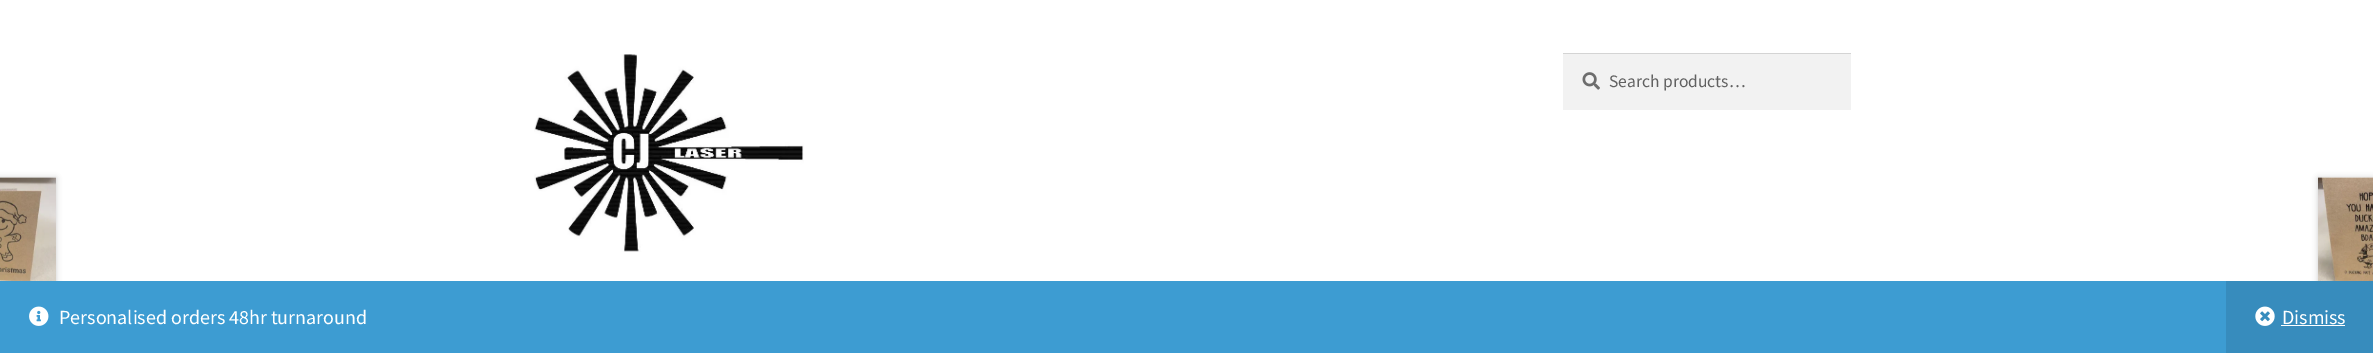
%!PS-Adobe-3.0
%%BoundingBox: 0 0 2373 353
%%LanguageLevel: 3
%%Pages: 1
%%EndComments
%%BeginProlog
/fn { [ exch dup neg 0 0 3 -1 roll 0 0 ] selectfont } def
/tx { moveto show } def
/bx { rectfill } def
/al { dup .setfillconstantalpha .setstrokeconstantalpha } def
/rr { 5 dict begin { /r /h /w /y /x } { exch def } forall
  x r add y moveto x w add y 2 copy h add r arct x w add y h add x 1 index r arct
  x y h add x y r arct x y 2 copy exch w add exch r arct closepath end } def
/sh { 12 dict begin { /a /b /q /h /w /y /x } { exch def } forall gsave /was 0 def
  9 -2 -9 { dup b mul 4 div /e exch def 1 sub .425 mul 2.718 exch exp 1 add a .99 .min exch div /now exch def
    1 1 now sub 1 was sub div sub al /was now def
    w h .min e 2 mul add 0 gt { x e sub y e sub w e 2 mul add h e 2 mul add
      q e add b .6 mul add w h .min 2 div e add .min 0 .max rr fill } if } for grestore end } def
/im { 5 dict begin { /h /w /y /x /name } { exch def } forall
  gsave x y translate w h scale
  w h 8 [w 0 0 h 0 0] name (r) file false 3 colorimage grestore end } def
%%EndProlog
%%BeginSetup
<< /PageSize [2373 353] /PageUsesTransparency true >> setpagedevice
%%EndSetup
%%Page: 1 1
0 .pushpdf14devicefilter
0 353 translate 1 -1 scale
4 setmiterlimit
1 setgray
0 0 2373 353 bx
(image0.raw) 534 54 270 198 im
0.949 setgray
1563 54 288 56 bx
(image1.raw) 1582 72 18 18 im
0.831 setgray
1563 53 288 1 bx
/SourceSansPro-Regular 17.5 fn
0.38 setgray
(Search products…) 1609 87 tx
0 setgray
-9 178 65 112 0 3 0.2 sh
(image2.raw) 0 177 56 104 im
2318 178 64 112 0 3 0.2 sh
(image3.raw) 2318 177 55 104 im
0.239 0.612 0.824 setrgbcolor
0 281 2226 72 bx
(image4.raw) 29 306 20 20 im
/SourceSansPro-Regular 20 fn
1 setgray
(Personalised orders 48hr turnaround) 59 324 tx
0.216 0.549 0.741 setrgbcolor
2226 281 147 72 bx
(image5.raw) 2255 306 20 20 im
1 setgray
(Dismiss) 2282 324 tx
2281 325 64 1 bx
.poppdf14devicefilter showpage
%%EOF
